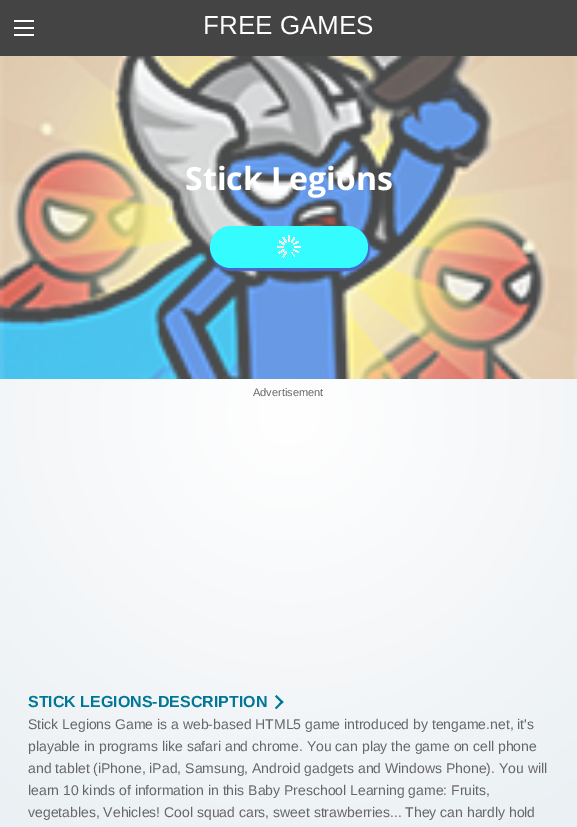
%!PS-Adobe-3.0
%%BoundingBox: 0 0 577 827
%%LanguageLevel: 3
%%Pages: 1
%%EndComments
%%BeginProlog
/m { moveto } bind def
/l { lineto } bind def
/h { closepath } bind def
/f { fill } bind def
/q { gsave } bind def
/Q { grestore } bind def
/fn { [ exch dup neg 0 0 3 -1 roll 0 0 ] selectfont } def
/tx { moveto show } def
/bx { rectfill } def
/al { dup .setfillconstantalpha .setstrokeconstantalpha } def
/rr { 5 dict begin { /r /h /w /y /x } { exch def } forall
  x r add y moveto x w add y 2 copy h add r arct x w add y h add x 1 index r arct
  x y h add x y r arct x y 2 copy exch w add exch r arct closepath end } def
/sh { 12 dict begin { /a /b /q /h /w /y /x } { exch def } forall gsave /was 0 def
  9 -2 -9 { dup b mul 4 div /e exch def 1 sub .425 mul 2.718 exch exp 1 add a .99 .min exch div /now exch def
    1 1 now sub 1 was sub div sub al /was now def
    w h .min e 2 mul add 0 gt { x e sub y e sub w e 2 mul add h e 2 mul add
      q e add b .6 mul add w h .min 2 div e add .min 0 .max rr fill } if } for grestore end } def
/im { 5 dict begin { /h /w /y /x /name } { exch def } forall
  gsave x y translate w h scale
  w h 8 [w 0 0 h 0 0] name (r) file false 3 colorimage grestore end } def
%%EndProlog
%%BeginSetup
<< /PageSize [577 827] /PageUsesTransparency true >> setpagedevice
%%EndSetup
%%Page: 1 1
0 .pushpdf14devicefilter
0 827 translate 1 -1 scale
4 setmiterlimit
1 setgray
0 0 577 827 bx
q 0 56 m 577 56 l 577 827 l 0 827 l h clip newpath 289 414 translate 504 504 scale
<< /ShadingType 3 /ColorSpace /DeviceRGB /Coords [0 0 0 0 0 1] /Extend [true true] /Function << /FunctionType 2 /Domain [0 1] /C0 [1 1 1] /C1 [0.918 0.941 0.953] /N 1 >> >> shfill Q
0.267 setgray
0 0 577 56 bx
1 setgray
14 20 20 2 bx
14 27 20 2 bx
14 34 20 2 bx
/LiberationSans-Regular 26 fn
(FREE GAMES) 203 34 tx
(image0.raw) 0 56 577 323 im
/OpenSans-Bold 32 fn
(Stick Legions) 185 190 tx
0.271 0.408 0.773 setrgbcolor
210 227 160 44 22 0.5 1 sh
0.208 0.992 1 setrgbcolor
210 226 158 42 21 rr f
(image1.raw) 277 235 24 23 im
/LiberationSans-Regular 11 fn
0.4 setgray
(Advertisement) 253 396 tx
/LiberationSans-Bold 16 fn
0 0.467 0.588 setrgbcolor
(STICK LEGIONS-DESCRIPTION) 28 707 tx
275 696.5 m 276.5 695 l 283.5 702 l 282 703.5 l h f
275 708 m 282 700.5 l 283.5 702 l 276.5 709 l h f
/LiberationSans-Regular 14 fn
0.4 setgray
(Stick Legions Game is a web-based HTML5 game introduced by tengame.net, it's) 28 729 tx
(playable in programs like safari and chrome. You can play the game on cell phone) 28 751 tx
(and tablet \(iPhone, iPad, Samsung, Android gadgets and Windows Phone\). You will) 28 773 tx
(learn 10 kinds of information in this Baby Preschool Learning game: Fruits,) 28 795 tx
(vegetables, Vehicles! Cool squad cars, sweet strawberries... They can hardly hold) 28 817 tx
.poppdf14devicefilter showpage
%%EOF
